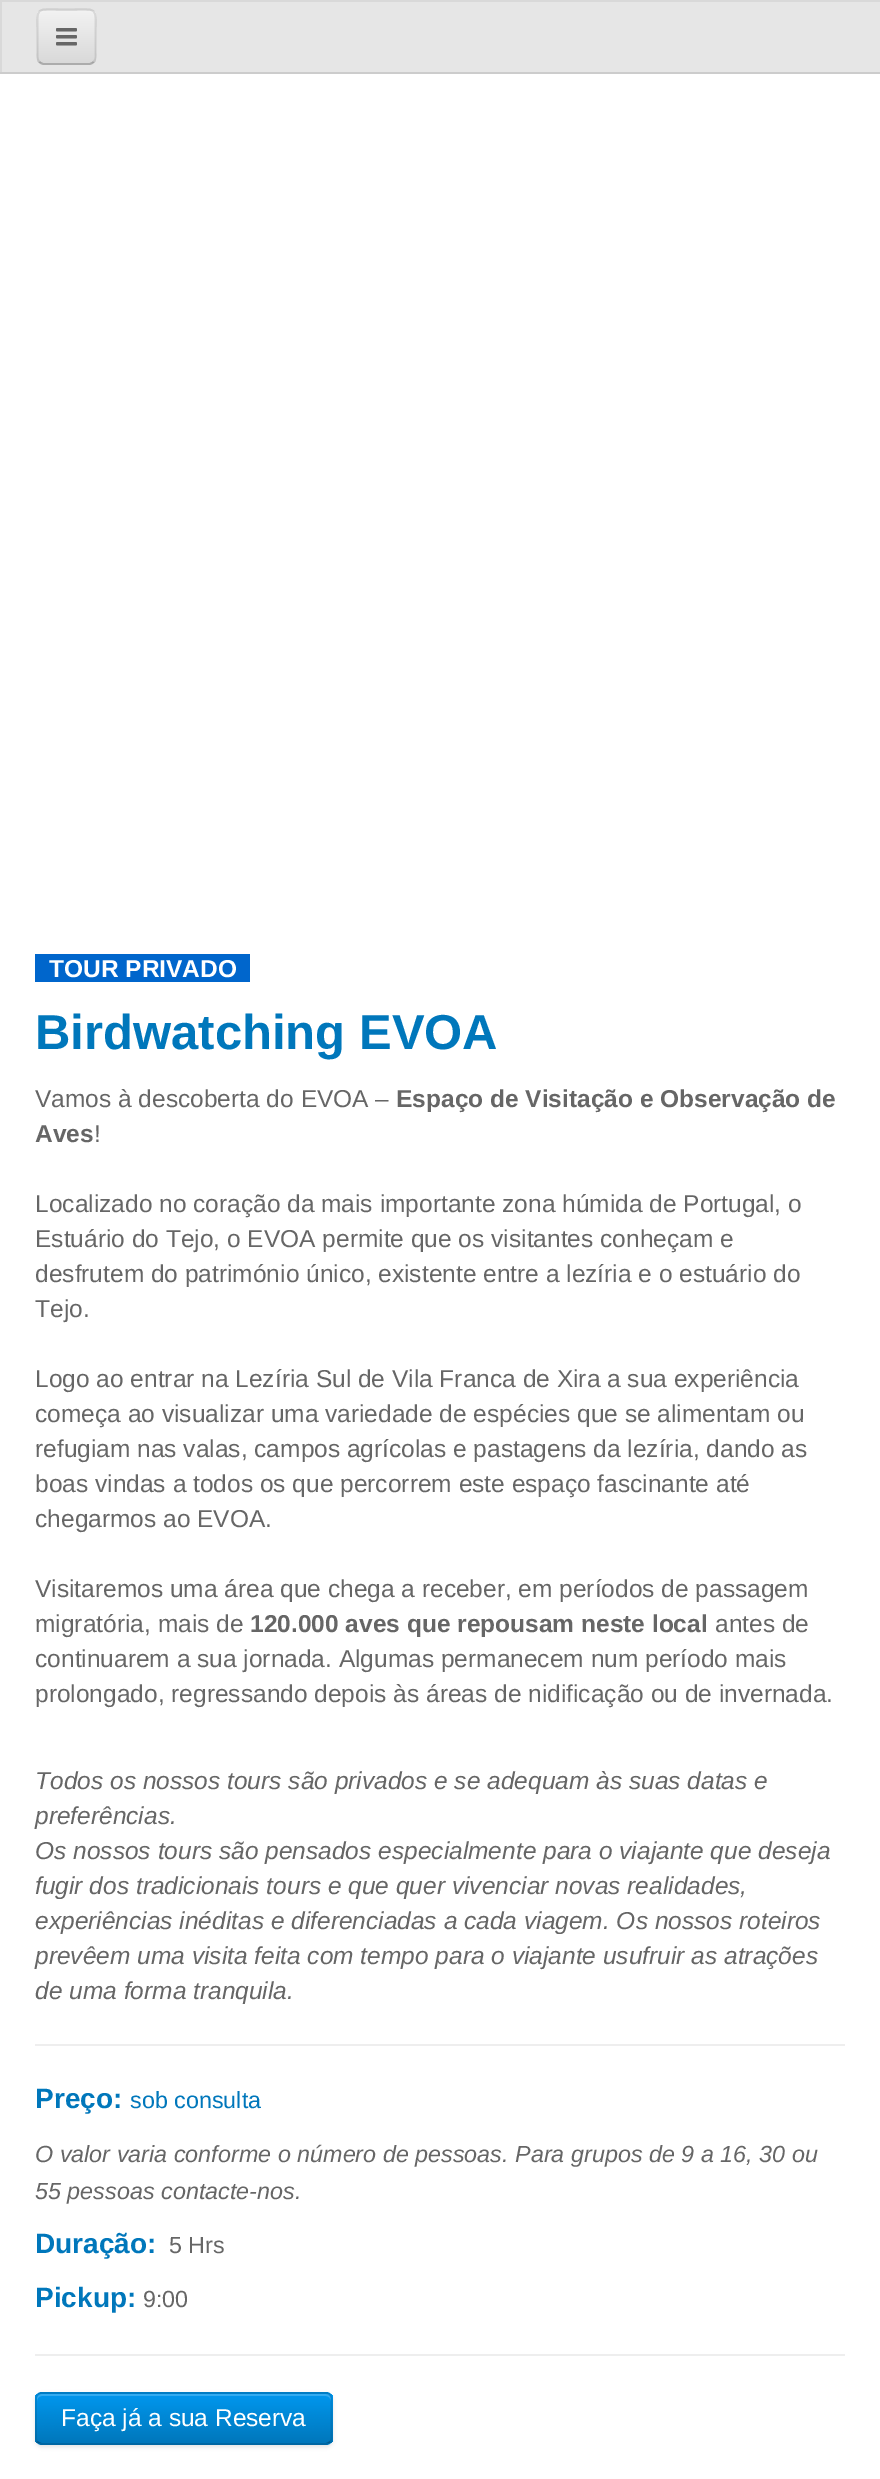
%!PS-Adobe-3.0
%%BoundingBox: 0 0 880 2479
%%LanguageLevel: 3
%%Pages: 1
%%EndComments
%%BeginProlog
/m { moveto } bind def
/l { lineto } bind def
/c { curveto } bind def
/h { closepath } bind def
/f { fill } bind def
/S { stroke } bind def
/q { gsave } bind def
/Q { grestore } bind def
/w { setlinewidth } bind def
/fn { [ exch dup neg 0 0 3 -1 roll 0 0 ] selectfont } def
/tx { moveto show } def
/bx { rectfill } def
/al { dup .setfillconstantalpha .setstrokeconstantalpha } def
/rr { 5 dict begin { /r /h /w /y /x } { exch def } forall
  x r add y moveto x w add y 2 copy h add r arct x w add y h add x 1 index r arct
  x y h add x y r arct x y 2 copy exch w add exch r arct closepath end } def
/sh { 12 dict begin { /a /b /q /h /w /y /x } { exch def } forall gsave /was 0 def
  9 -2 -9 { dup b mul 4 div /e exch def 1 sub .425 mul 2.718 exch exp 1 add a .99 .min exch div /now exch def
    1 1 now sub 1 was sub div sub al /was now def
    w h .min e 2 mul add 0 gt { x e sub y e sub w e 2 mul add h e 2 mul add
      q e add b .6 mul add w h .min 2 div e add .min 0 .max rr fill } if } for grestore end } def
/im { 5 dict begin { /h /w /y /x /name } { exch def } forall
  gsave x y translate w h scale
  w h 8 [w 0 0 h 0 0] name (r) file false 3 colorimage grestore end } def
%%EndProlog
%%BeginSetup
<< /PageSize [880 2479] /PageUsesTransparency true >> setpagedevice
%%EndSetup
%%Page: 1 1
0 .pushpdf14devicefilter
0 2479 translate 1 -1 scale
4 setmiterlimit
1 setgray
0 0 880 2479 bx
0.902 setgray
2 2 878 70 bx
0.851 setgray
0 0 880 2 bx
0.8 setgray
0 72 880 2 bx
0.851 setgray
0 2 2 70 bx
q
37 9 59 56 7 rr clip newpath
q 37 11 m 96 11 l 96 63 l 37 63 l h clip newpath
<< /ShadingType 2 /ColorSpace /DeviceRGB /Coords [67 10 67 63] /Extend [true true] /Function << /FunctionType 2 /Domain [0 1] /C0 [0.949 0.949 0.949] /C1 [0.851 0.851 0.851] /N 1 >> >> shfill Q
Q
0.1 al
1 setgray
44 12 m 90 12 l 95 13 94 22 94 25 c 94 61 l 95 60 95 59 95 58 c 95 16 l 95 13 93 11 90 11 c 44 11 l 42 11 40 13 39 15 c 40 13 42 12 44 12 c h f
0.25 al
0 setgray
1.8 w
93.5 62 m 92.5 63 91 64 89 64 c 44 64 l 42 64 40.5 63 39.5 62 c S
0.1 al
39.5 62 m 36.5 59 37.5 54 37.5 51 c 37.5 37 l 37.5 4.5 33.5 9.5 66.5 9.5 c 99.5 9.5 95.5 4.5 95.5 37 c 95.5 51 l 95.5 54 96.5 59 93.5 62 c S
1 al
(image0.raw) 56 28 21 18 im
0 0.4 0.8 setrgbcolor
35 954 215 28 bx
/LiberationSans-Bold 24.5 fn
1 setgray
(TOUR PRIVADO) 49 977 tx
/LiberationSans-Bold 49 fn
0 0.467 0.733 setrgbcolor
(Birdwatching EVOA) 35 1049 tx
/LiberationSans-Regular 24.5 fn
0.4 setgray
(Vamos à descoberta do EVOA –) 35 1107 tx
/LiberationSans-Bold 24.5 fn
(Espaço de Visitação e Observação de) 396 1107 tx
(Aves) 35 1142 tx
/LiberationSans-Regular 24.5 fn
(!) 94 1142 tx
(Localizado no coração da mais importante zona húmida de Portugal, o) 35 1212 tx
(Estuário do Tejo, o EVOA permite que os visitantes conheçam e) 35 1247 tx
(desfrutem do património único, existente entre a lezíria e o estuário do) 35 1282 tx
(Tejo.) 35 1317 tx
(Logo ao entrar na Lezíria Sul de Vila Franca de Xira a sua experiência) 35 1387 tx
(começa ao visualizar uma variedade de espécies que se alimentam ou) 35 1422 tx
(refugiam nas valas, campos agrícolas e pastagens da lezíria, dando as) 35 1457 tx
(boas vindas a todos os que percorrem este espaço fascinante até) 35 1492 tx
(chegarmos ao EVOA.) 35 1527 tx
(Visitaremos uma área que chega a receber, em períodos de passagem) 35 1597 tx
(migratória, mais de) 35 1632 tx
/LiberationSans-Bold 24.5 fn
(120.000 aves que repousam neste local) 250 1632 tx
/LiberationSans-Regular 24.5 fn
(antes de) 715 1632 tx
(continuarem a sua jornada. Algumas permanecem num período mais) 35 1667 tx
(prolongado, regressando depois às áreas de nidificação ou de invernada.) 35 1702 tx
/LiberationSans-Italic 24.5 fn
(Todos os nossos tours são privados e se adequam às suas datas e) 35 1789 tx
(preferências.) 35 1824 tx
(Os nossos tours são pensados especialmente para o viajante que deseja) 35 1859 tx
(fugir dos tradicionais tours e que quer vivenciar novas realidades,) 35 1894 tx
(experiências inéditas e diferenciadas a cada viagem. Os nossos roteiros) 35 1929 tx
(prevêem uma visita feita com tempo para o viajante usufruir as atrações) 35 1964 tx
(de uma forma tranquila.) 35 1999 tx
0.933 setgray
35 2044 810 2 bx
/LiberationSans-Bold 28 fn
0 0.467 0.733 setrgbcolor
(Preço:) 35 2108 tx
/LiberationSans-Regular 23.35 fn
(sob consulta) 130 2108 tx
/LiberationSans-Italic 23.35 fn
0.4 setgray
(O valor varia conforme o número de pessoas. Para grupos de 9 a 16, 30 ou) 35 2162 tx
(55 pessoas contacte-nos.) 35 2199 tx
/LiberationSans-Bold 28 fn
0 0.467 0.733 setrgbcolor
(Duração:) 35 2253 tx
/LiberationSans-Regular 23.35 fn
0.4 setgray
(5 Hrs) 169 2253 tx
/LiberationSans-Bold 28 fn
0 0.467 0.733 setrgbcolor
(Pickup:) 35 2307 tx
/LiberationSans-Regular 23.35 fn
0.4 setgray
(9:00) 143 2307 tx
0.933 setgray
35 2354 810 2 bx
0 setgray
35 2394 298 53 7 2 0.1 sh
0 0.541 0.855 setrgbcolor
35 2392 298 53 7 rr f
q
35 2392 298 53 7 rr clip newpath
q 35 2394 m 333 2394 l 333 2443 l 35 2443 l h clip newpath
<< /ShadingType 2 /ColorSpace /DeviceRGB /Coords [184 2394 184 2443] /Extend [true true] /Function << /FunctionType 2 /Domain [0 1] /C0 [0 0.592 0.933] /C1 [0 0.467 0.733] /N 1 >> >> shfill Q
Q
0.2 al
1 setgray
42 2396 m 326 2396 l 328 2396 331 2398 331 2401 c 331 2398 330 2394 326 2394 c 41 2394 l 37 2395 37 2398 37 2401 c 37 2398 39 2396 42 2396 c h f
0.25 al
0 setgray
330 2442 m 328.5 2443 327 2444 325.5 2444 c 42 2444 l 40.5 2444 39 2443 37.5 2442 c S
0.1 al
37.5 2442 m 36.5 2441 36 2439.5 36 2438 c 36 2399 l 36 2397.5 36.5 2396 37.5 2395 c 39 2394 40.5 2393 42 2393 c 325.5 2393 l 327 2393 328.5 2394 330 2395 c 331 2396 331.5 2397.5 331.5 2399 c 331.5 2438 l 331.5 2439.5 331 2441 330 2442 c S
/LiberationSans-Regular 24.5 fn
1 al
1 setgray
(Faça já a sua Reserva) 61 2426 tx
.poppdf14devicefilter showpage
%%EOF
